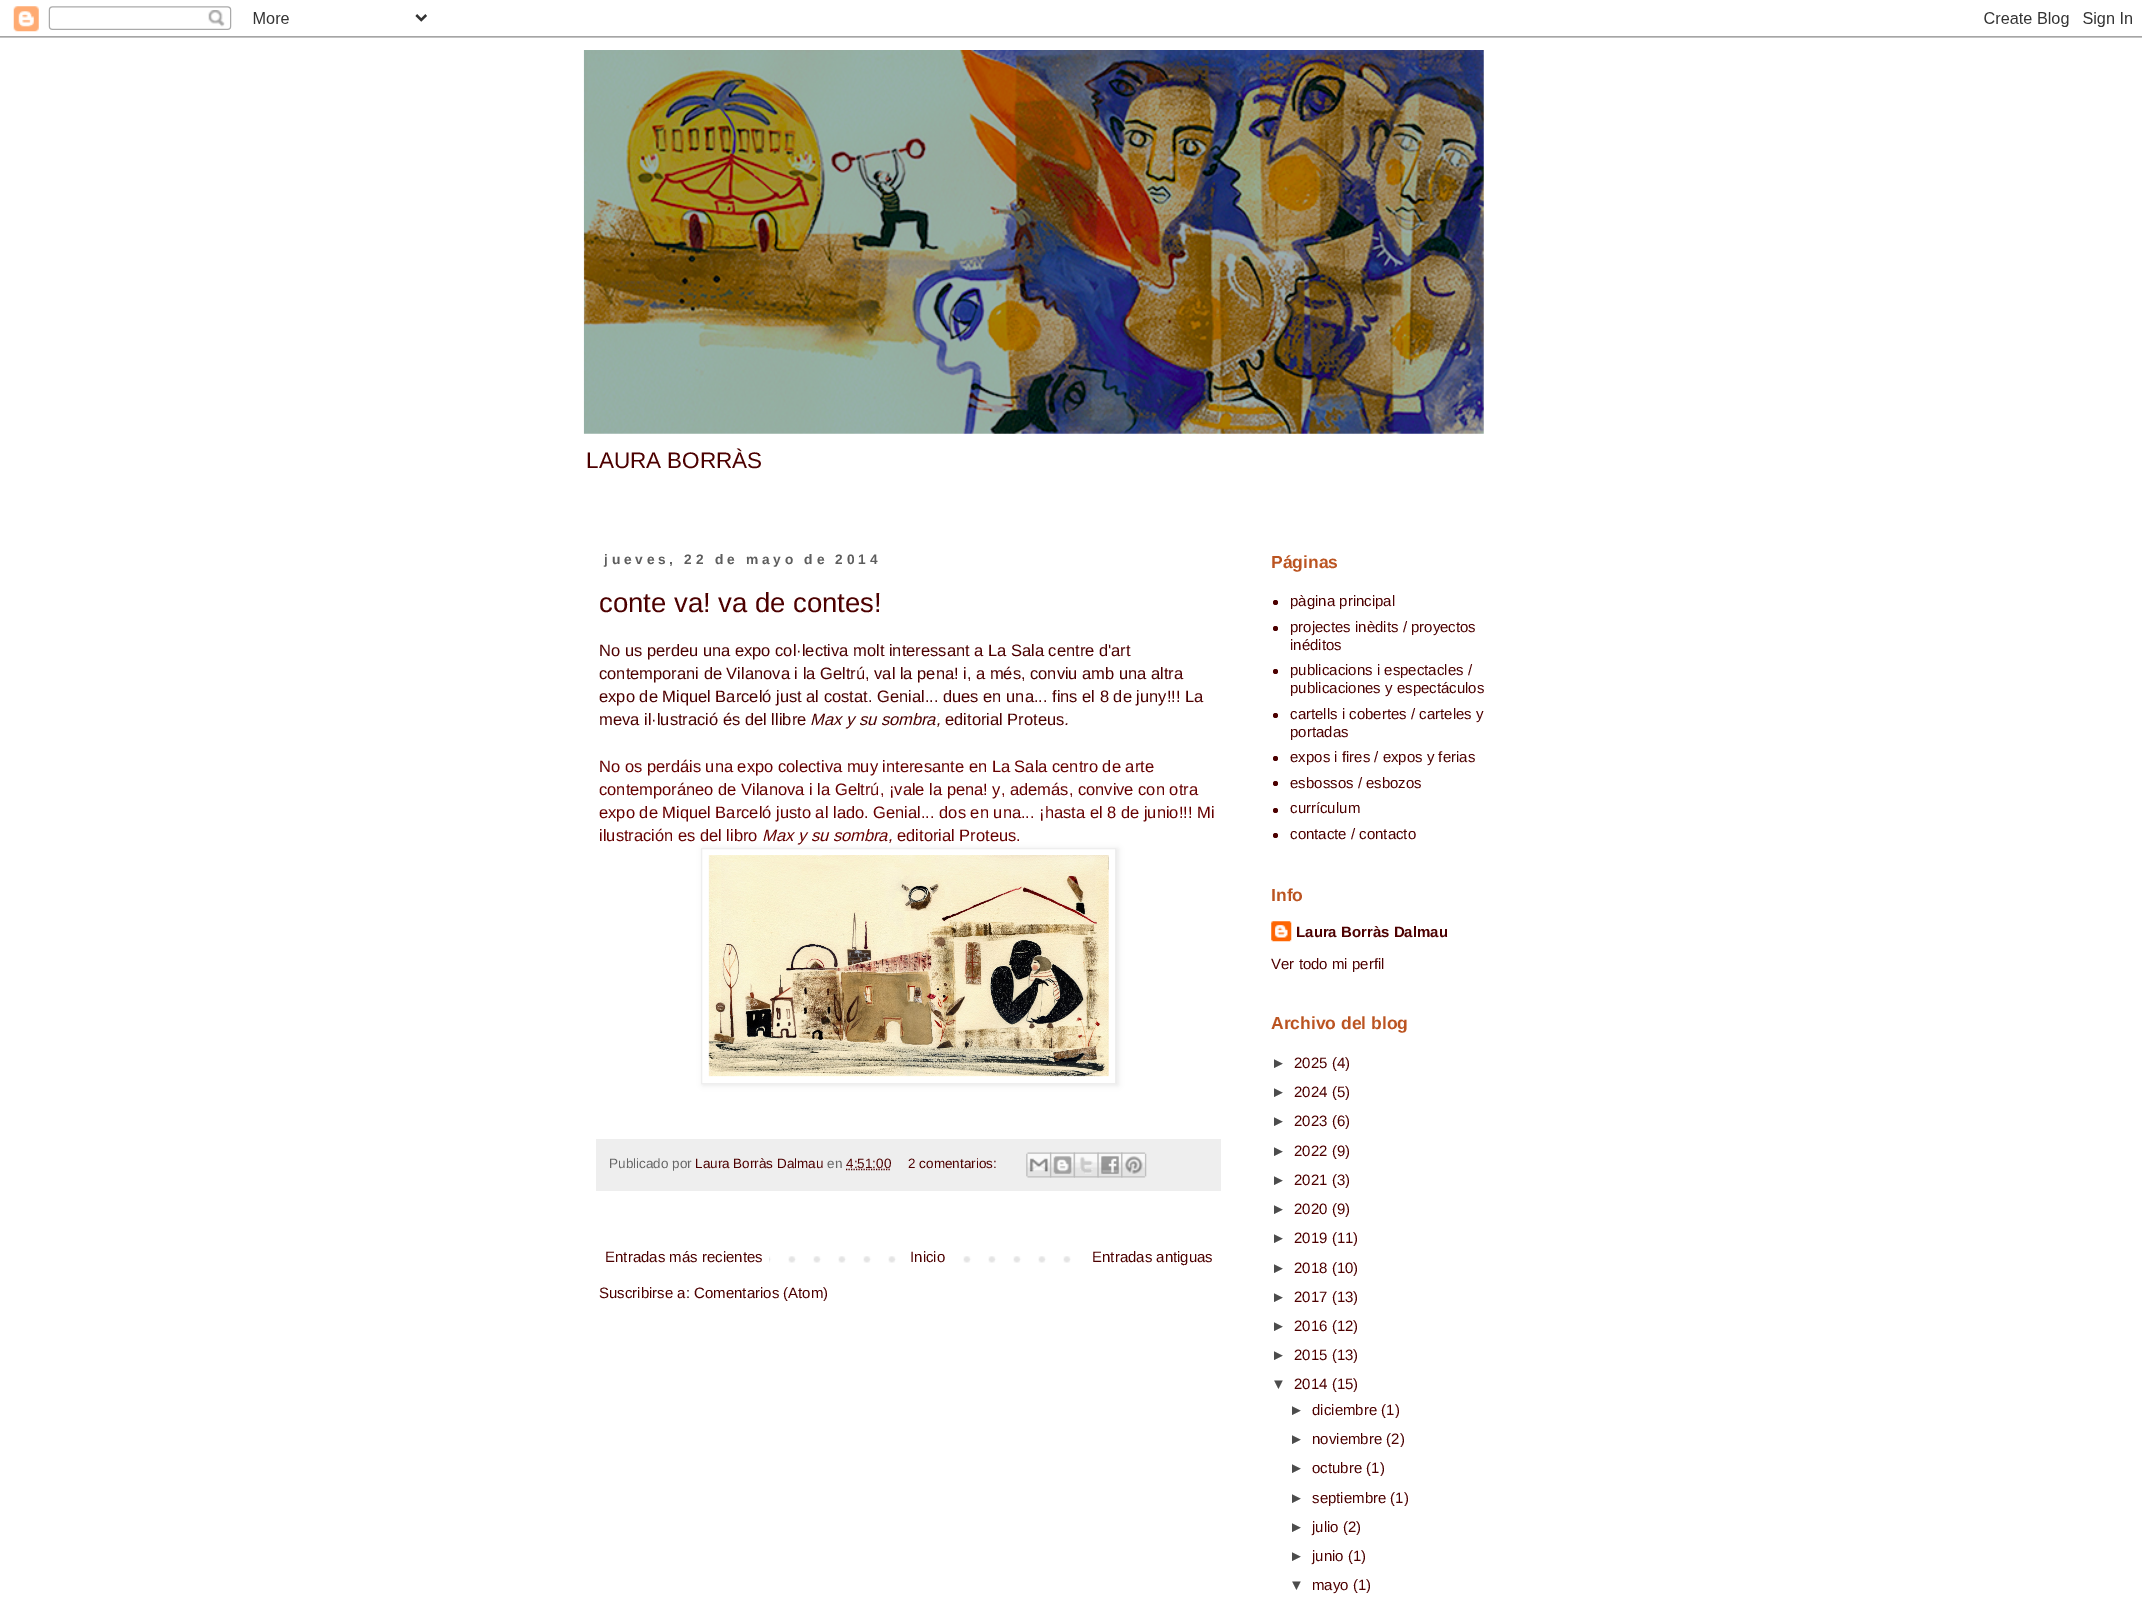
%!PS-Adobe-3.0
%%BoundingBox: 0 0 2142 1606
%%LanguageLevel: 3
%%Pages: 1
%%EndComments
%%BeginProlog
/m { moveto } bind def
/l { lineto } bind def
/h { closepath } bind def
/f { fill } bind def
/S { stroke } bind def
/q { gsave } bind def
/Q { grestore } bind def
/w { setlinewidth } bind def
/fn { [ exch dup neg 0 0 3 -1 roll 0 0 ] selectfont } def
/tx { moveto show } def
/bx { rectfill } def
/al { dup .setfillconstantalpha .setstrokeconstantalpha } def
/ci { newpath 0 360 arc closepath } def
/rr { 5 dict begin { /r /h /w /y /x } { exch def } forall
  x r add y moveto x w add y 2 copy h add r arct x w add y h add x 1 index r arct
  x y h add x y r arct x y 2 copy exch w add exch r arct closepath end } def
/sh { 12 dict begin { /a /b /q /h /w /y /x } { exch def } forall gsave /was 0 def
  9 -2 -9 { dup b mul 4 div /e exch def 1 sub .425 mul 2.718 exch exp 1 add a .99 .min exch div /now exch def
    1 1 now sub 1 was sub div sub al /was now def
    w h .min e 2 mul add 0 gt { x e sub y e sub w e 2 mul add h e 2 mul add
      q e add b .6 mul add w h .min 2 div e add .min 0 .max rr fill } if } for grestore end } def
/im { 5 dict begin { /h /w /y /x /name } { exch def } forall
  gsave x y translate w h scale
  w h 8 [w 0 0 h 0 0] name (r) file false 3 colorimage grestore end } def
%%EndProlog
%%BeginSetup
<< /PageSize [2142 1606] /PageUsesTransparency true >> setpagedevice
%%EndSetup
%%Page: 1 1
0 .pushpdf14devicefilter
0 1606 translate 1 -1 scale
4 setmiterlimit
1 setgray
0 0 2142 1606 bx
(image0.raw) 0 6 2142 32 im
(image1.raw) 583 50 901 384 im
/Arimo-Regular 22.5 fn
0.298 0 0 setrgbcolor
(LAURA BORRÀS) 586 468 tx
/LiberationSans-Bold 13.75 fn
0.365 setgray
604 564 m 3.75 0 (jueves, 22 de mayo de 2014) ashow
/Arimo-Regular 27.5 fn
0.298 0 0 setrgbcolor
(conte va! va de contes!) 599 612 tx
/Arimo-Regular 16.5 fn
(No us perdeu una expo col·lectiva molt interessant a La Sala centre d'art) 599 656 tx
(contemporani de Vilanova i la Geltrú, val la pena! i, a més, conviu amb una altra) 599 679 tx
(expo de Miquel Barceló just al costat. Genial... dues en una... fins el 8 de juny!!! La) 599 702 tx
(meva il·lustració és del llibre) 599 725 tx
/Arimo-Italic 16.5 fn
(Max y su sombra,) 810 725 tx
/Arimo-Regular 16.5 fn
(editorial Proteus) 945 725 tx
/Arimo-Italic 16.5 fn
(.) 1064 725 tx
/Arimo-Regular 16.5 fn
0.4 0 0 setrgbcolor
(No os perdáis una expo colectiva muy interesante en La Sala centro de arte) 599 772 tx
(contemporáneo de Vilanova i la Geltrú, ¡vale la pena! y, además, convive con otra) 599 795 tx
(expo de Miquel Barceló justo al lado. Genial... dos en una... ¡hasta el 8 de junio!!! Mi) 599 818 tx
(ilustración es del libro) 599 841 tx
/Arimo-Italic 16.5 fn
(Max y su sombra,) 762 841 tx
/Arimo-Regular 16.5 fn
(editorial Proteus.) 897 841 tx
0 setgray
703 849 415 236 0 3 0.1 sh
1 setgray
701.5 848.5 m 1115.5 848.5 l 1115.5 1083.5 l 701.5 1083.5 l h q f Q
0.933 setgray
S
(image2.raw) 708 855 401 222 im
596 1139 625 52 bx
/Arimo-Regular 13.5 fn
0.4 setgray
(Publicado por) 609 1168 tx
0.298 0 0 setrgbcolor
(Laura Borràs Dalmau) 695 1168 tx
0.4 setgray
(en) 827 1168 tx
0.298 0 0 setrgbcolor
1.2 w
[1.25 1.25] 0 setdash
846 1169.5 m 891 1169.5 l S
(4:51:00) 846 1168 tx
(2 comentarios:) 908 1168 tx
(image3.raw) 1026 1152 26 26 im
(image4.raw) 1050 1152 25 26 im
(image5.raw) 1073 1152 26 26 im
(image6.raw) 1097 1152 26 26 im
(image7.raw) 1121 1152 26 26 im
(image8.raw) 769 1256 302 7 im
/Arimo-Regular 15 fn
(Entradas más recientes) 605 1262 tx
1 setgray
913 1256 33 7 bx
0.298 0 0 setrgbcolor
(Inicio) 910 1262 tx
(Entradas antiguas) 1092 1262 tx
(Suscribirse a: Comentarios \(Atom\)) 599 1298 tx
/Arimo-Bold 17.5 fn
0.733 0.329 0.129 setrgbcolor
(Páginas) 1271 568 tx
0.298 0 0 setrgbcolor
1275.5 602.5 2.5 ci f
/Arimo-Regular 15 fn
(pàgina principal) 1290 606 tx
1275.5 628.5 2.5 ci f
(projectes inèdits / proyectos) 1290 632 tx
(inéditos) 1290 650 tx
1275.5 671.5 2.5 ci f
(publicacions i espectacles /) 1290 675 tx
(publicaciones y espectáculos) 1290 693 tx
1275.5 715.5 2.5 ci f
(cartells i cobertes / carteles y) 1290 719 tx
(portadas) 1290 737 tx
1275.5 758.5 2.5 ci f
(expos i fires / expos y ferias) 1290 762 tx
1275.5 783.5 2.5 ci f
(esbossos / esbozos) 1290 788 tx
1275.5 810.5 2.5 ci f
(currículum) 1290 813 tx
1275.5 835.5 2.5 ci f
(contacte / contacto) 1290 839 tx
/Arimo-Bold 17.5 fn
0.733 0.329 0.129 setrgbcolor
(Info) 1271 901 tx
(image9.raw) 1271 921 21 21 im
/Arimo-Bold 15 fn
0.298 0 0 setrgbcolor
(Laura Borràs Dalmau) 1296 937 tx
/Arimo-Regular 15 fn
(Ver todo mi perfil) 1271 969 tx
/Arimo-Bold 17.5 fn
0.733 0.329 0.129 setrgbcolor
(Archivo del blog) 1271 1029 tx
/LiberationSans-Regular 15 fn
0.298 setgray
(►) 1271 1068 tx
/Arimo-Regular 15 fn
0.298 0 0 setrgbcolor
(2025 \(4\)) 1294 1068 tx
/LiberationSans-Regular 15 fn
0.298 setgray
(►) 1271 1097 tx
/Arimo-Regular 15 fn
0.298 0 0 setrgbcolor
(2024 \(5\)) 1294 1097 tx
/LiberationSans-Regular 15 fn
0.298 setgray
(►) 1271 1126 tx
/Arimo-Regular 15 fn
0.298 0 0 setrgbcolor
(2023 \(6\)) 1294 1126 tx
/LiberationSans-Regular 15 fn
0.298 setgray
(►) 1271 1156 tx
/Arimo-Regular 15 fn
0.298 0 0 setrgbcolor
(2022 \(9\)) 1294 1156 tx
/LiberationSans-Regular 15 fn
0.298 setgray
(►) 1271 1185 tx
/Arimo-Regular 15 fn
0.298 0 0 setrgbcolor
(2021 \(3\)) 1294 1185 tx
/LiberationSans-Regular 15 fn
0.298 setgray
(►) 1271 1214 tx
/Arimo-Regular 15 fn
0.298 0 0 setrgbcolor
(2020 \(9\)) 1294 1214 tx
/LiberationSans-Regular 15 fn
0.298 setgray
(►) 1271 1243 tx
/Arimo-Regular 15 fn
0.298 0 0 setrgbcolor
(2019 \(11\)) 1294 1243 tx
/LiberationSans-Regular 15 fn
0.298 setgray
(►) 1271 1273 tx
/Arimo-Regular 15 fn
0.298 0 0 setrgbcolor
(2018 \(10\)) 1294 1273 tx
/LiberationSans-Regular 15 fn
0.298 setgray
(►) 1271 1302 tx
/Arimo-Regular 15 fn
0.298 0 0 setrgbcolor
(2017 \(13\)) 1294 1302 tx
/LiberationSans-Regular 15 fn
0.298 setgray
(►) 1271 1331 tx
/Arimo-Regular 15 fn
0.298 0 0 setrgbcolor
(2016 \(12\)) 1294 1331 tx
/LiberationSans-Regular 15 fn
0.298 setgray
(►) 1271 1360 tx
/Arimo-Regular 15 fn
0.298 0 0 setrgbcolor
(2015 \(13\)) 1294 1360 tx
/LiberationSans-Regular 15 fn
0.298 setgray
(▼) 1271 1389 tx
/Arimo-Regular 15 fn
0.298 0 0 setrgbcolor
(2014 \(15\)) 1294 1389 tx
/LiberationSans-Regular 15 fn
0.298 setgray
(►) 1289 1415 tx
/Arimo-Regular 15 fn
0.298 0 0 setrgbcolor
(diciembre \(1\)) 1312 1415 tx
/LiberationSans-Regular 15 fn
0.298 setgray
(►) 1289 1444 tx
/Arimo-Regular 15 fn
0.298 0 0 setrgbcolor
(noviembre \(2\)) 1312 1444 tx
/LiberationSans-Regular 15 fn
0.298 setgray
(►) 1289 1473 tx
/Arimo-Regular 15 fn
0.298 0 0 setrgbcolor
(octubre \(1\)) 1312 1473 tx
/LiberationSans-Regular 15 fn
0.298 setgray
(►) 1289 1503 tx
/Arimo-Regular 15 fn
0.298 0 0 setrgbcolor
(septiembre \(1\)) 1312 1503 tx
/LiberationSans-Regular 15 fn
0.298 setgray
(►) 1289 1532 tx
/Arimo-Regular 15 fn
0.298 0 0 setrgbcolor
(julio \(2\)) 1312 1532 tx
/LiberationSans-Regular 15 fn
0.298 setgray
(►) 1289 1561 tx
/Arimo-Regular 15 fn
0.298 0 0 setrgbcolor
(junio \(1\)) 1312 1561 tx
/LiberationSans-Regular 15 fn
0.298 setgray
(▼) 1289 1590 tx
/Arimo-Regular 15 fn
0.298 0 0 setrgbcolor
(mayo \(1\)) 1312 1590 tx
.poppdf14devicefilter showpage
%%EOF
